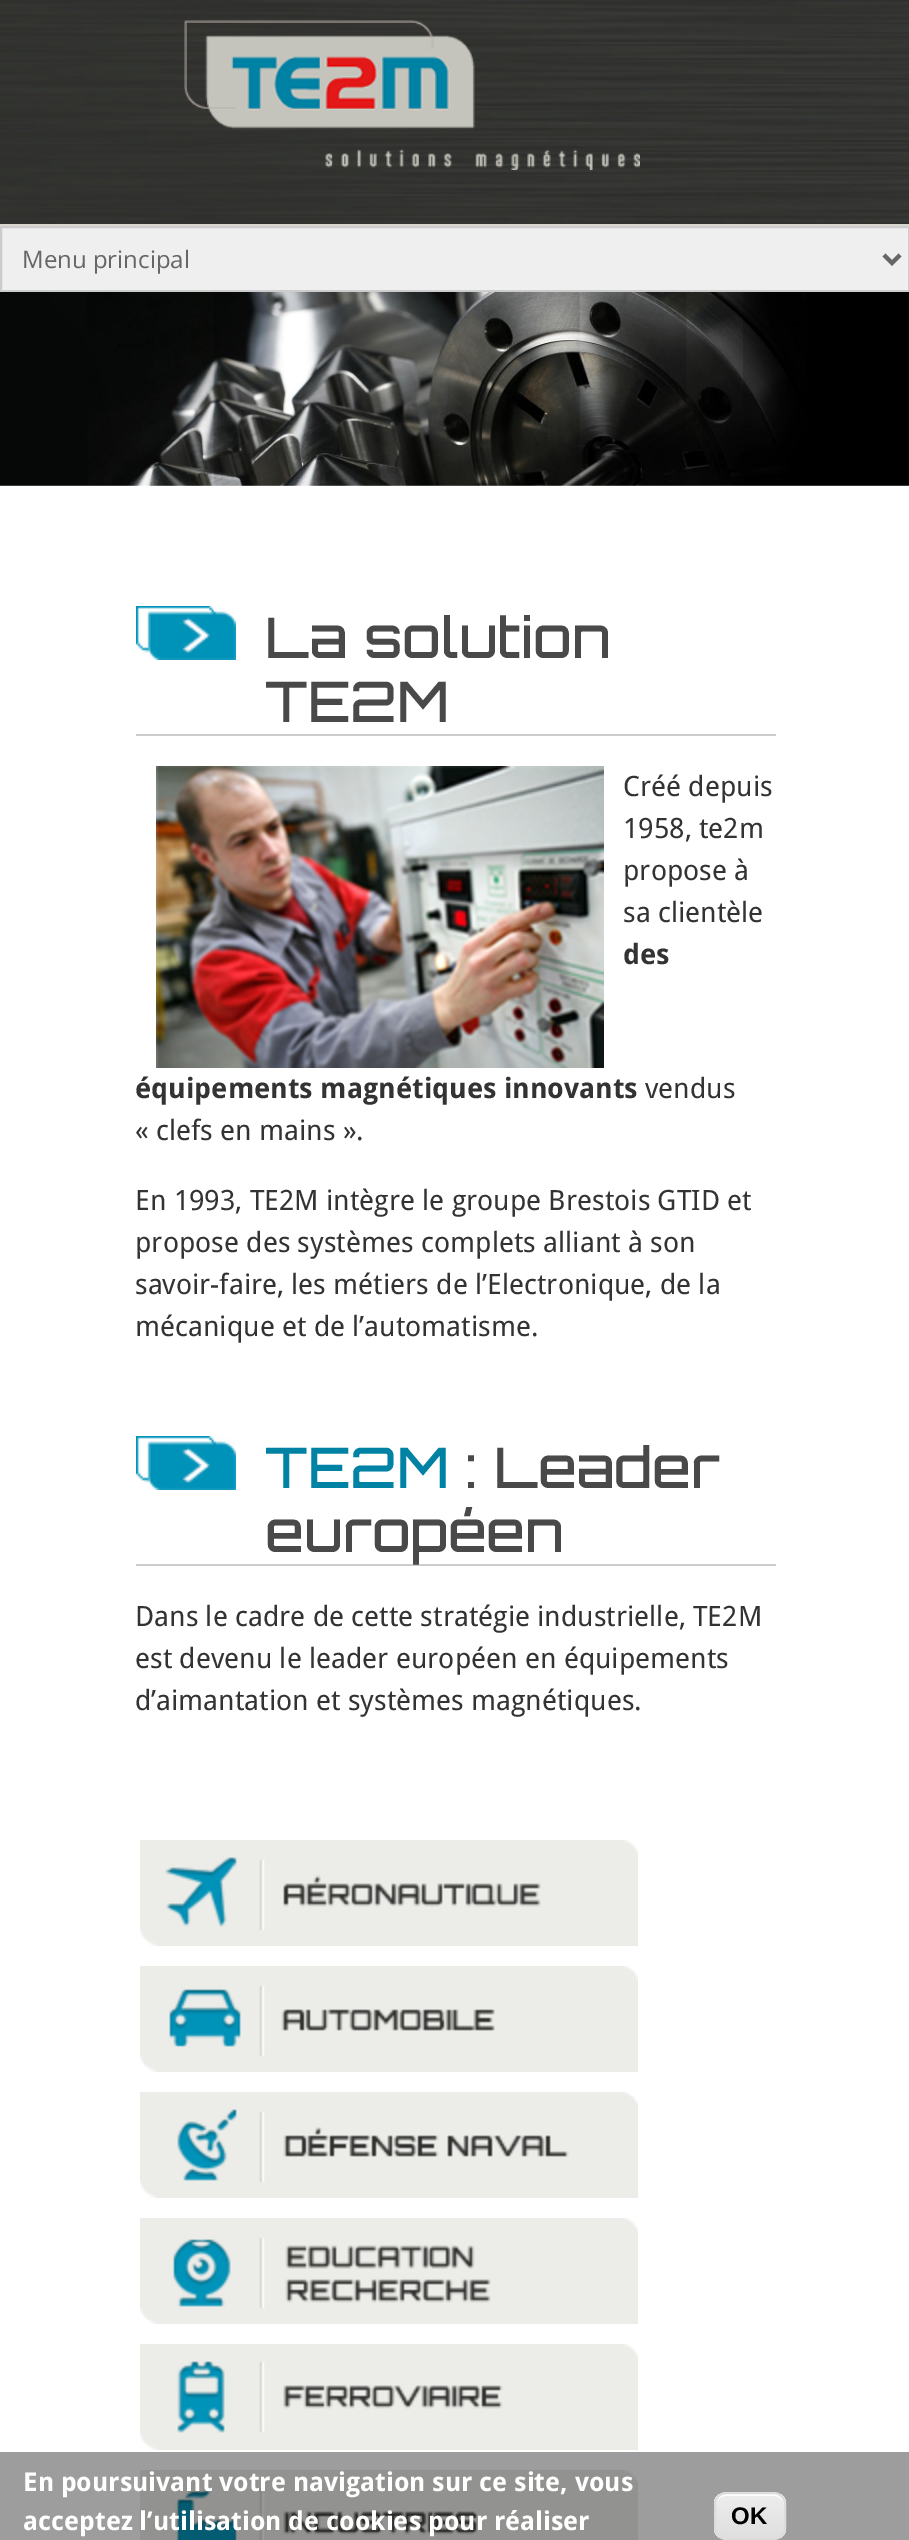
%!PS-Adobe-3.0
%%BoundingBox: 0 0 909 2540
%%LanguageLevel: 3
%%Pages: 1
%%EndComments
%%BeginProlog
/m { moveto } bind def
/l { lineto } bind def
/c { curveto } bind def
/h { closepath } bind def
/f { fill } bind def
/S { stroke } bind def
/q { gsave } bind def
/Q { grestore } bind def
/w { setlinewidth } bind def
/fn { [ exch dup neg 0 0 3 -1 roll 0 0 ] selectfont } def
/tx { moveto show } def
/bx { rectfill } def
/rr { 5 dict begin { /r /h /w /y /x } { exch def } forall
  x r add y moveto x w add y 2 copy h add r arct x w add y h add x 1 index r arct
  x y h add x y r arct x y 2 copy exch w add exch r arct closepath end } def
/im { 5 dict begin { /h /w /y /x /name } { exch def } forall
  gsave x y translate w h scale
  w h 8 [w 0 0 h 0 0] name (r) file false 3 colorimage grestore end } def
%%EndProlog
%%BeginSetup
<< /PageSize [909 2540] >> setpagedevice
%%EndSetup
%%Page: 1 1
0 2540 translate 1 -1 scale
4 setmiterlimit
1 setgray
0 0 909 2540 bx
0.616 setgray
0 2452 909 88 bx
(image0.raw) 0 0 909 224 im
0.847 0.835 0.804 setrgbcolor
0 224 909 2 bx
(image1.raw) 184 20 456 150 im
0.937 setgray
1 227 m 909 227 l 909 291 l 1 291 l h q f Q
0.8 setgray
2 w
S
0.4 setgray
4 w
884 255 m 892 263 l 900 255 l S
/OpenSans-Regular 24 fn
(Menu principal) 22 268 tx
(image2.raw) 0 292 909 194 im
(image3.raw) 136 606 100 54 im
0.8 setgray
136 734 640 2 bx
/Orbitron-Medium 56 fn
0.286 setgray
(La solution) 265 658 tx
(TE2M) 265 722 tx
(image4.raw) 156 766 448 302 im
/DroidSans-Regular 28 fn
0.2 setgray
(Créé depuis) 623 796 tx
(1958, te2m) 623 838 tx
(propose à) 623 880 tx
(sa clientèle) 623 922 tx
/DroidSans-Bold 28 fn
(des) 623 964 tx
(équipements magnétiques innovants) 135 1098 tx
/DroidSans-Regular 28 fn
(vendus) 645 1098 tx
(« clefs en mains ».) 135 1140 tx
(En 1993, TE2M intègre le groupe Brestois GTID et) 135 1210 tx
(propose des systèmes complets alliant à son) 135 1252 tx
(savoir-faire, les métiers de l’Electronique, de la) 135 1294 tx
(mécanique et de l’automatisme.) 135 1336 tx
(image3.raw) 136 1436 100 54 im
0.8 setgray
136 1564 640 2 bx
/Orbitron-Medium 56 fn
0 0.51 0.643 setrgbcolor
(TE2M) 265 1488 tx
0.286 setgray
(: Leader) 465 1488 tx
(européen) 265 1552 tx
/DroidSans-Regular 28 fn
0.2 setgray
(Dans le cadre de cette stratégie industrielle, TE2M) 135 1626 tx
(est devenu le leader européen en équipements) 135 1668 tx
(d’aimantation et systèmes magnétiques.) 135 1710 tx
(image5.raw) 140 1840 498 106 im
(image6.raw) 140 1966 498 106 im
(image7.raw) 140 2092 498 106 im
(image8.raw) 140 2218 498 106 im
(image9.raw) 140 2344 498 106 im
(image10.raw) 140 2470 498 70 im
/DroidSans-Bold 26 fn
1 setgray
(En poursuivant votre navigation sur ce site, vous) 23 2491 tx
(acceptez l’utilisation de cookies pour réaliser) 23 2530 tx
q
714 2492 72 48 12 rr clip newpath
q 714 2494 m 786 2494 l 786 2538 l 714 2538 l h clip newpath
<< /ShadingType 2 /ColorSpace /DeviceRGB /Coords [750 2494 750 2538] /Extend [true true] /Function << /FunctionType 3 /Domain [0 1] /Functions [<< /FunctionType 2 /Domain [0 1] /C0 [0.929 0.929 0.929] /C1 [0.929 0.929 0.929] /N 1 >> << /FunctionType 2 /Domain [0 1] /C0 [0.929 0.929 0.929] /C1 [0.875 0.875 0.875] /N 1 >>] /Bounds [0.05] /Encode [0 1 0 1] >> >> shfill Q
Q
726 2496 m 774 2496 l 780 2496 784 2500 784 2506 c 784 2494 776 2494 766 2494 c 734 2494 l 724 2494 716 2494 716 2506 c 716 2500 720 2496 726 2496 c h f
0.863 setgray
2 w
715 2493 70 46 11 rr S
/LiberationSans-Bold 24 fn
0 setgray
(OK) 731 2524 tx
showpage
%%EOF
